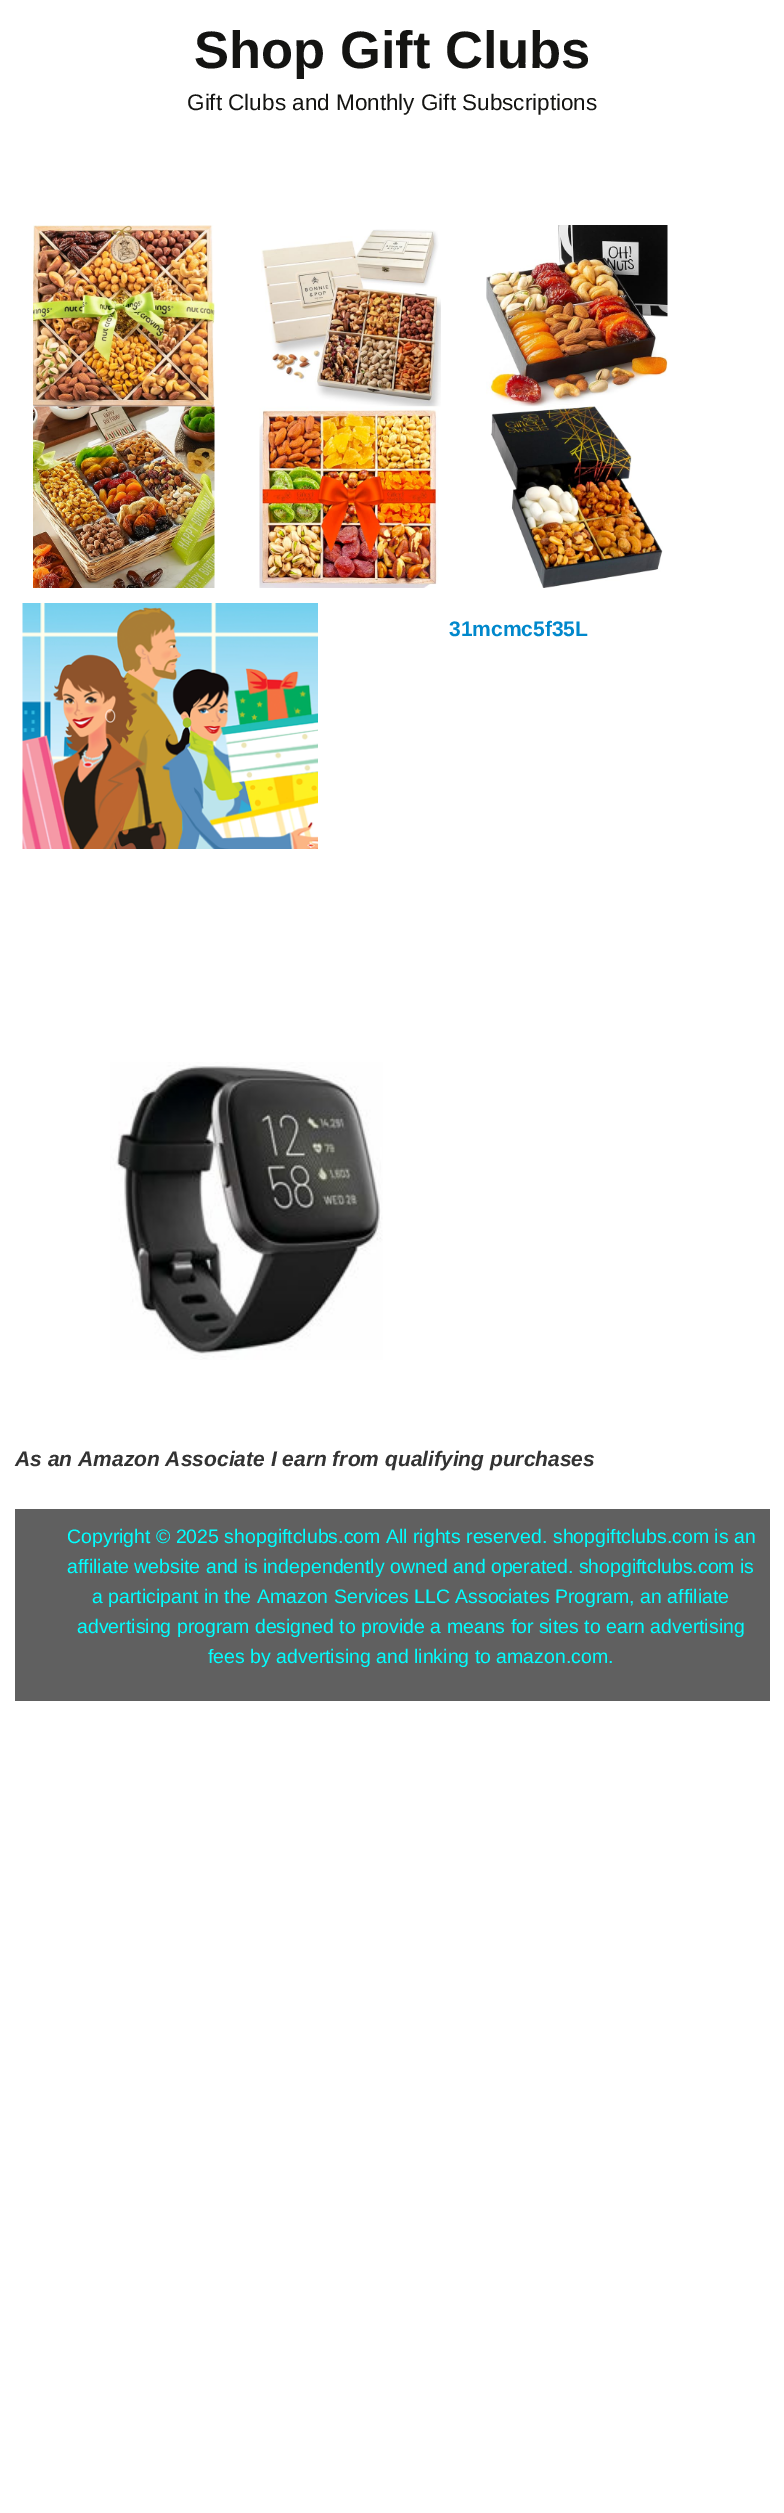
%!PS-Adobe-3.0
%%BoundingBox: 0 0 784 2513
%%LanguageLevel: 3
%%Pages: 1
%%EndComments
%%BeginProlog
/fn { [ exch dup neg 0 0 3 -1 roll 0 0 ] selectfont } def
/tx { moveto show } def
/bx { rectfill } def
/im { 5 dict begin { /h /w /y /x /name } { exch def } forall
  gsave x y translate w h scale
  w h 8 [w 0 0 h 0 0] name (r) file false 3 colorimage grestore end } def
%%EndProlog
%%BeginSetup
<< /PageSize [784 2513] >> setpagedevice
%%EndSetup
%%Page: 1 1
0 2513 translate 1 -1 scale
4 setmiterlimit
1 setgray
0 0 784 2513 bx
/LiberationSans-Bold 52.5 fn
0.078 0.078 0.071 setrgbcolor
(Shop Gift Clubs) 194 68 tx
/LiberationSans-Regular 22.5 fn
(Gift Clubs and Monthly Gift Subscriptions) 187 110 tx
(image0.raw) 33 225 182 182 im
(image1.raw) 261 229 180 178 im
(image2.raw) 486 225 182 182 im
(image3.raw) 33 406 182 182 im
(image4.raw) 259 406 180 182 im
(image5.raw) 491 406 172 182 im
(image6.raw) 22 603 296 246 im
/LiberationSans-Bold 21 fn
0 0.533 0.8 setrgbcolor
(31mcmc5f35L) 449 636 tx
(image7.raw) 110 1062 273 298 im
/LiberationSans-BoldItalic 21 fn
0.2 setgray
(As an Amazon Associate I earn from qualifying purchases) 15 1466 tx
0.376 setgray
15 1509 755 192 bx
/LiberationSans-Regular 19.5 fn
0.004 1 1 setrgbcolor
(Copyright © 2025 shopgiftclubs.com All rights reserved. shopgiftclubs.com is an) 67 1543 tx
(affiliate website and is independently owned and operated. shopgiftclubs.com is) 67 1573 tx
(a participant in the Amazon Services LLC Associates Program, an affiliate) 92 1603 tx
(advertising program designed to provide a means for sites to earn advertising) 77 1633 tx
(fees by advertising and linking to amazon.com.) 208 1663 tx
showpage
%%EOF
